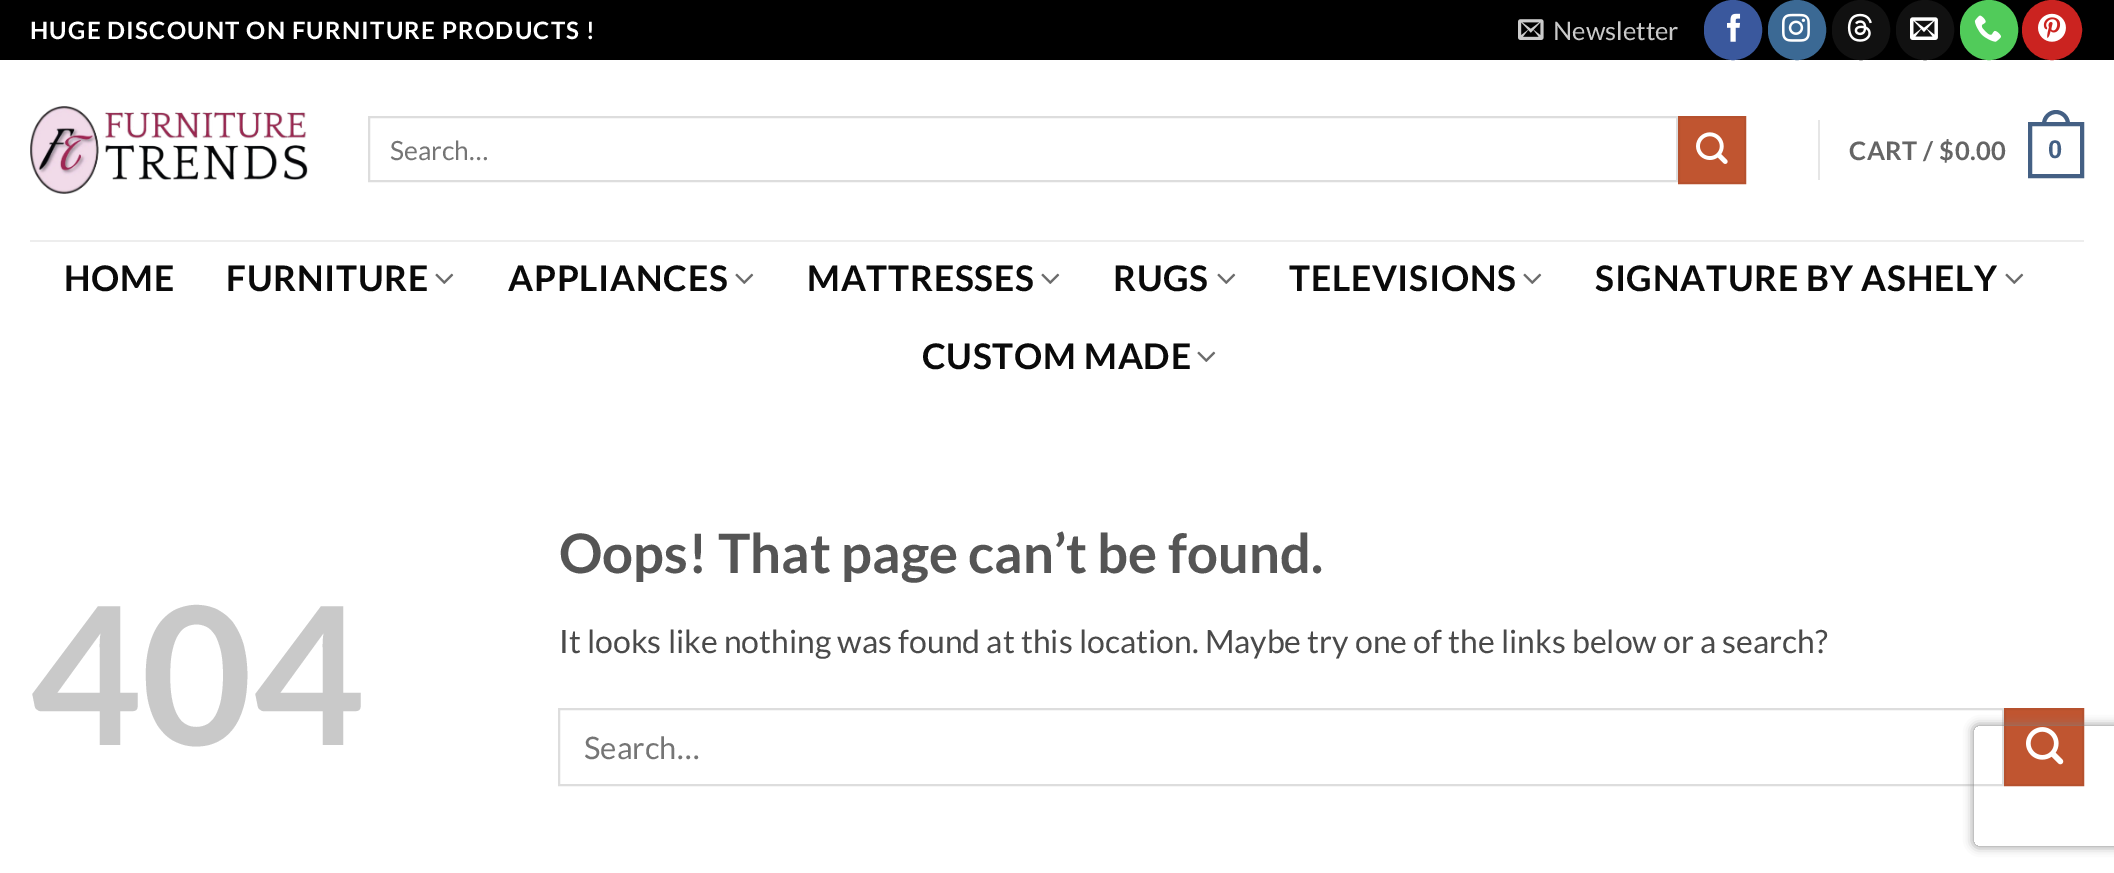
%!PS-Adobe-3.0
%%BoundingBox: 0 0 2114 873
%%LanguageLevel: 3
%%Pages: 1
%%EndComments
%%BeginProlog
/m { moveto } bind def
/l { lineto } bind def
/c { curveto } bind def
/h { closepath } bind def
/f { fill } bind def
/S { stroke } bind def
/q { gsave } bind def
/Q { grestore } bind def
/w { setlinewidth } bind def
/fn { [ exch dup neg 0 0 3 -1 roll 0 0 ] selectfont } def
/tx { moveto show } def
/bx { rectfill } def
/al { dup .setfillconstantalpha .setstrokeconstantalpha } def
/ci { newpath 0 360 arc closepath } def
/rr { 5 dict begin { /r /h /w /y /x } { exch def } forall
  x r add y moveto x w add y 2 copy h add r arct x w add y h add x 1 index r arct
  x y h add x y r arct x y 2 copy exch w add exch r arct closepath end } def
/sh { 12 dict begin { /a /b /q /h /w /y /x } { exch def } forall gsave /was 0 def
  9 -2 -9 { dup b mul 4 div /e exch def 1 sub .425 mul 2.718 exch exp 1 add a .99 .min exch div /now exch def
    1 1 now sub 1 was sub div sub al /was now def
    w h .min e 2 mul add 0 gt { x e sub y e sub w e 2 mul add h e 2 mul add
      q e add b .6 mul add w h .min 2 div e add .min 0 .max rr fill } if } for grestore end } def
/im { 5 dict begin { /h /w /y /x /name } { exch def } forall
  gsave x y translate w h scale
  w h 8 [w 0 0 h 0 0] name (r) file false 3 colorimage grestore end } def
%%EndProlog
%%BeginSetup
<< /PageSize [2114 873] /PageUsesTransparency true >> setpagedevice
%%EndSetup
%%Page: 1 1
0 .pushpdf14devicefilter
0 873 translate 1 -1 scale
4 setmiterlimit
1 setgray
0 0 2114 873 bx
0 setgray
0 0 2114 60 bx
/Lato-Bold 24 fn
1 setgray
30 39 m 1.2 0 (HUGE DISCOUNT ON FURNITURE PRODUCTS !) ashow
(image0.raw) 1518 19 26 21 im
/Lato-Regular 25.5 fn
0.788 setgray
(Newsletter) 1553 40 tx
0.227 0.345 0.616 setrgbcolor
1705 1 56 58 28 rr q f Q
2 w
S
(image1.raw) 1727 13 14 29 im
0.231 0.412 0.58 setrgbcolor
1769 1 56 58 28 rr q f Q
S
(image2.raw) 1782 13 28 29 im
0.067 setgray
1833 1 56 58 28 rr q f Q
S
(image3.raw) 1847 13 25 29 im
1897 1 56 58 28 rr q f Q
S
(image4.raw) 1910 17 28 23 im
0.318 0.796 0.353 setrgbcolor
1961 1 56 58 28 rr q f Q
S
(image5.raw) 1974 15 27 27 im
0.796 0.137 0.125 setrgbcolor
2052 30 29 ci q f Q
S
(image6.raw) 2038 13 28 29 im
(image7.raw) 30 106 278 88 im
0.867 setgray
369 117 1308 64 rectstroke
/Lato-Regular 26.5 fn
0.459 setgray
(Search…) 390 160 tx
0.753 0.333 0.188 setrgbcolor
1679 117 m 1745 117 l 1745 183 l 1679 183 l h q f Q
0.714 0.318 0.18 setrgbcolor
S
(image8.raw) 1696 132 32 32 im
0.902 setgray
1818 120 2 60 bx
/Lato-Bold 25.5 fn
0.396 setgray
1849 160 m 0.5 0 (CART / $0.00) ashow
0.267 0.376 0.518 setrgbcolor
4 w
2030 124 52 52 rectstroke
2056 110 m 2063.5 110 2070 116.5 2070 124 c 2070 126 l 2042 126 l 2042 124 l 2042 116.5 2048.5 110 2056 110 c h 2056 114 m 2061.5 114 2066 118.5 2066 124 c 2066 126 l 2046 126 l 2046 124 l 2046 118.5 2050.5 114 2056 114 c h eofill
/LiberationSans-Bold 25.5 fn
2048 158 m 0.5 0 (0) ashow
0.929 setgray
30 240 2054 2 bx
/Lato-Bold 35.25 fn
0.039 setgray
64 291 m 0.75 0 (HOME) ashow
226 291 m 0.75 0 (FURNITURE) ashow
(image9.raw) 435 273 19 11 im
508 291 m 0.75 0 (APPLIANCES) ashow
(image9.raw) 735 273 19 11 im
807 291 m 0.75 0 (MATTRESSES) ashow
(image9.raw) 1041 273 19 11 im
1113 291 m 0.75 0 (RUGS) ashow
(image9.raw) 1217 273 19 11 im
1289 291 m 0.75 0 (TELEVISIONS) ashow
(image9.raw) 1523 273 19 11 im
1595 291 m 0.75 0 (SIGNATURE BY ASHELY) ashow
(image9.raw) 2005 273 19 11 im
922 369 m 0.75 0 (CUSTOM MADE) ashow
(image9.raw) 1197 351 19 11 im
/Lato-Bold 192 fn
0.788 setgray
(404) 30 745 tx
/Lato-Bold 54.4 fn
0.333 setgray
(Oops! That page can’t be found.) 559 573 tx
/Lato-Regular 32 fn
0.29 setgray
(It looks like nothing was found at this location. Maybe try one of the links below or a search?) 559 653 tx
0.867 setgray
2 w
559 709 1444 76 rectstroke
/Lato-Regular 31 fn
0.459 setgray
(Search…) 584 759 tx
0.753 0.333 0.188 setrgbcolor
2005 709 m 2083 709 l 2083 785 l 2005 785 l h q f Q
0.714 0.318 0.18 setrgbcolor
S
(image10.raw) 2026 727 38 38 im
q
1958 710 m 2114 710 l 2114 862 l 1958 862 l h 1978 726 m 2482 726 l 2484 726 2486 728 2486 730 c 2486 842 l 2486 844 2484 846 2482 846 c 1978 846 l 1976 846 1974 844 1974 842 c 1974 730 l 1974 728 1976 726 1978 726 c h eoclip newpath
0.502 setgray
1974 726 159 120 4 5 1 sh
Q
.poppdf14devicefilter showpage
%%EOF
